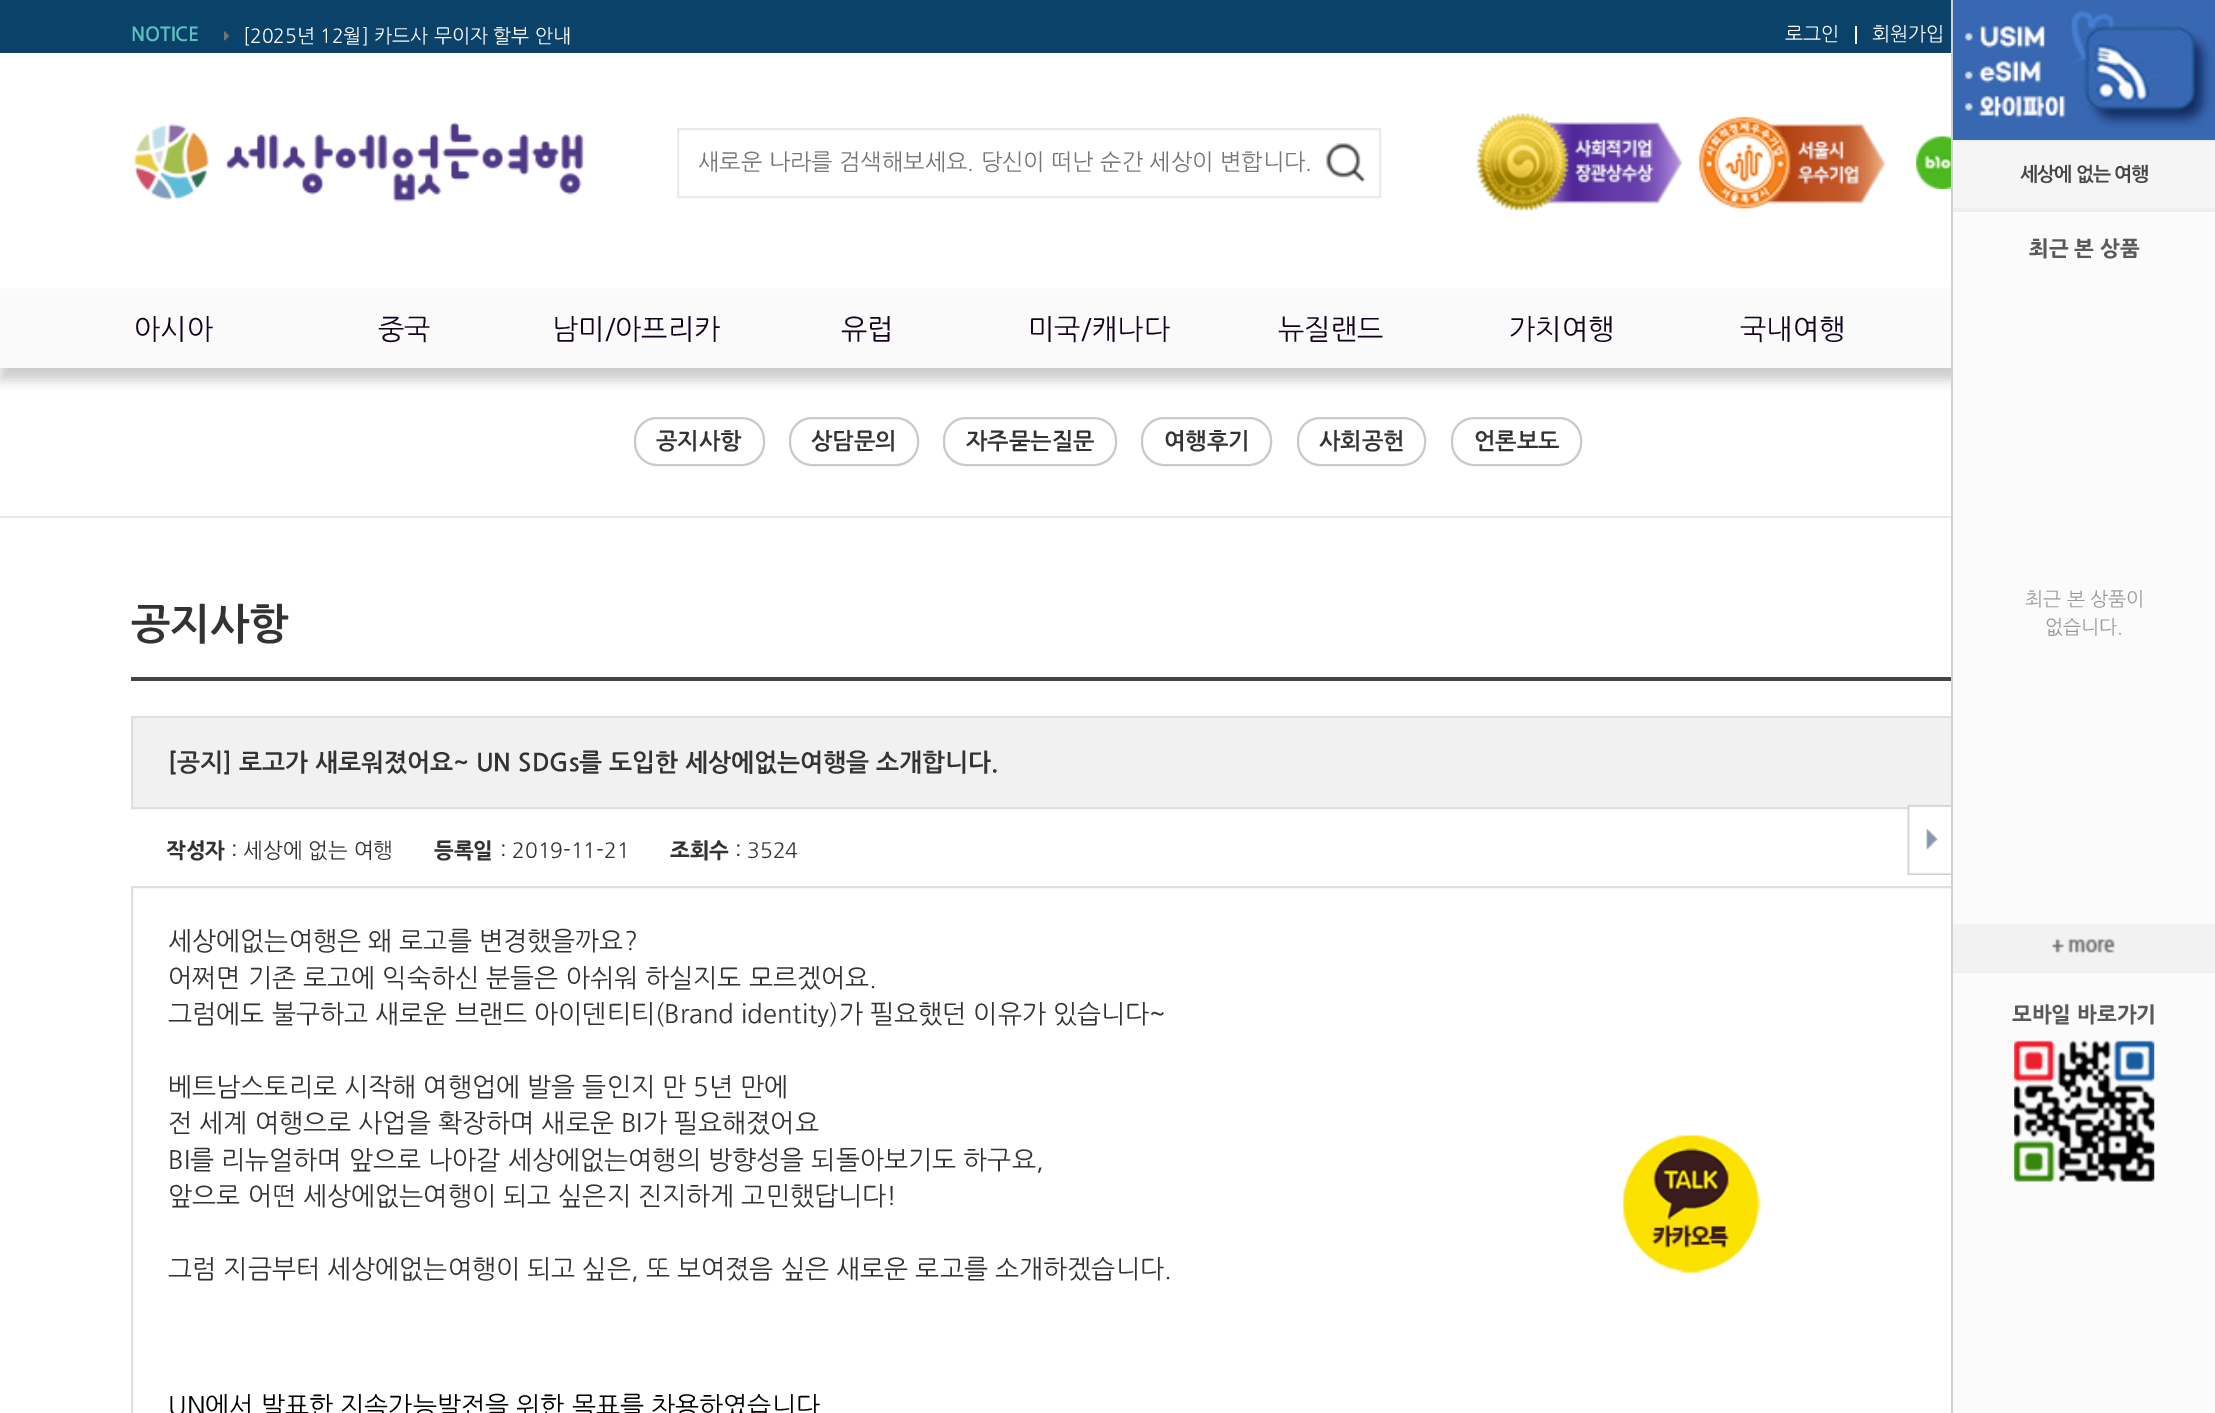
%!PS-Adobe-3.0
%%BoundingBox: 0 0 2215 1413
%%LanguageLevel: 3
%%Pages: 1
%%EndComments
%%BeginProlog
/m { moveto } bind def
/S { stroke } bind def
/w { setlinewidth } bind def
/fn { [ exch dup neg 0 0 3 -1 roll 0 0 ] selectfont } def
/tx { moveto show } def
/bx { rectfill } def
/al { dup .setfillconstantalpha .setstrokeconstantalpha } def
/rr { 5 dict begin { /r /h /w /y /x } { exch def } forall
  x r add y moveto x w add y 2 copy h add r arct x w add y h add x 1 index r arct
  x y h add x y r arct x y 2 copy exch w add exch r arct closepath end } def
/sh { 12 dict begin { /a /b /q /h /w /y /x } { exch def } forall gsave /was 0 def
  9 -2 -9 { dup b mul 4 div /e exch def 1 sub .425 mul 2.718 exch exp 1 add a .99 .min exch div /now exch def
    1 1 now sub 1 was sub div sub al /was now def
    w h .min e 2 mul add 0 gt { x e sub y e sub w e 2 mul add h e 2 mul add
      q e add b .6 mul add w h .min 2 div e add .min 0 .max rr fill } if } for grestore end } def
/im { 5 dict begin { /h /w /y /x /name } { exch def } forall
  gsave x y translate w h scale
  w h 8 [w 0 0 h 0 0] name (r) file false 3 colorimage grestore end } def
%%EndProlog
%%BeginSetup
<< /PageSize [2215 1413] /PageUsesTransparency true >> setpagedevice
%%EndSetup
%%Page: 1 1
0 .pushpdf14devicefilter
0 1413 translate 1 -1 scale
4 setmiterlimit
1 setgray
0 0 2215 1413 bx
0.043 0.259 0.416 setrgbcolor
0 0 1951 53 bx
(image0.raw) 224 31 6 10 im
/NanumGothic-Bold 19.25 fn
0.365 0.753 0.749 setrgbcolor
(NOTICE) 131 40 tx
/NanumGothic-Regular 19.25 fn
1 setgray
([2025년 12월] 카드사 무이자 할부 안내) 243 42 tx
(로그인) 1785 40 tx
1855 26 2 18 bx
(회원가입) 1872 40 tx
(image1.raw) 134 122 450 80 im
0.918 setgray
2 w
678 129 702 68 rectstroke
/NanumGothic-Regular 22.75 fn
0.467 setgray
(새로운 나라를 검색해보세요. 당신이 떠난 순간 세상이 변합니다.) 698 169 tx
(image2.raw) 1326 143 40 40 im
(image3.raw) 1476 113 410 98 im
(image4.raw) 1916 136 35 53 im
0 setgray
0 301 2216 79 0 6 0.2 sh
0.98 setgray
0 289 1951 79 bx
/NanumGothic-Regular 28 fn
0.071 0.008 0.11 setrgbcolor
(아시아) 134 338 tx
(중국) 378 338 tx
(남미/아프리카) 552 338 tx
(유럽) 841 338 tx
(미국/캐나다) 1028 338 tx
(뉴질랜드) 1278 338 tx
(가치여행) 1509 338 tx
(국내여행) 1740 338 tx
0.945 setgray
133 718 1818 89 bx
0.875 setgray
132 717 1951 91 rectstroke
132 887 1951 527 rectstroke
0.984 setgray
1953 212 262 1201 bx
0.812 0.824 0.827 setrgbcolor
1951 0 2 1413 bx
(image5.raw) 1953 0 262 140 im
0.961 setgray
1953 142 262 66 bx
0.933 setgray
1953 140 262 2 bx
1953 208 262 4 bx
/NanumGothic-Bold 19.25 fn
0.267 setgray
2020 180 m -1 0 (세상에 없는 여행) ashow
/NanumGothic-ExtraBold 21 fn
0.353 setgray
(최근 본 상품) 2029 255 tx
/NanumGothic-Regular 19.25 fn
0.6 setgray
(최근 본 상품이) 2025 605 tx
(없습니다.) 2045 633 tx
0.949 setgray
1953 924 262 47 bx
(image6.raw) 2052 938 63 15 im
0.933 setgray
1953 971 262 2 bx
/NanumGothic-ExtraBold 21 fn
0.353 setgray
(모바일 바로가기) 2012 1021 tx
(image7.raw) 2014 1040 141 142 im
0.914 0.91 0.91 setrgbcolor
0 516 1951 2 bx
0.792 setgray
635 418 129 47 22 rr S
/NanumGothic-Bold 22.75 fn
0.2 setgray
(공지사항) 656 448 tx
0.792 setgray
790 418 128 47 22 rr S
0.2 setgray
(상담문의) 811 448 tx
0.792 setgray
944 418 172 47 22 rr S
0.2 setgray
(자주묻는질문) 966 448 tx
0.792 setgray
1142 418 129 47 22 rr S
0.2 setgray
(여행후기) 1164 448 tx
0.792 setgray
1298 418 127 47 22 rr S
0.2 setgray
(사회공헌) 1319 448 tx
0.792 setgray
1452 418 129 47 22 rr S
0.2 setgray
(언론보도) 1474 448 tx
/NanumGothic-Bold 42 fn
(공지사항) 131 637 tx
0.267 setgray
131 677 1820 4 bx
/NanumGothic-Bold 24.5 fn
0.2 setgray
([공지] 로고가 새로워졌어요~ UN SDGs를 도입한 세상에없는여행을 소개합니다.) 168 770 tx
/NanumGothic-ExtraBold 21 fn
(작성자) 166 857 tx
/NanumGothic-Regular 21 fn
(: 세상에 없는 여행) 231 857 tx
/NanumGothic-ExtraBold 21 fn
(등록일) 434 857 tx
/NanumGothic-Regular 21 fn
(: 2019-11-21) 500 857 tx
/NanumGothic-ExtraBold 21 fn
(조회수) 670 857 tx
/NanumGothic-Regular 21 fn
(: 3524) 735 857 tx
/NanumGothic-Regular 25.65 fn
(세상에없는여행은 왜 로고를 변경했을까요?) 168 949 tx
(어쩌면 기존 로고에 익숙하신 분들은 아쉬워 하실지도 모르겠어요.) 168 986 tx
(그럼에도 불구하고 새로운 브랜드 아이덴티티\(Brand identity\)가 필요했던 이유가 있습니다~) 168 1022 tx
(베트남스토리로 시작해 여행업에 발을 들인지 만 5년 만에) 168 1095 tx
(전 세계 여행으로 사업을 확장하며 새로운 BI가 필요해졌어요) 168 1131 tx
(BI를 리뉴얼하며 앞으로 나아갈 세상에없는여행의 방향성을 되돌아보기도 하구요,) 168 1168 tx
(앞으로 어떤 세상에없는여행이 되고 싶은지 진지하게 고민했답니다!) 168 1204 tx
(그럼 지금부터 세상에없는여행이 되고 싶은, 또 보여졌음 싶은 새로운 로고를 소개하겠습니다.) 168 1277 tx
0 setgray
(UN에서 발표한 지속가능발전을 위한 목표를 차용하였습니다) 168 1414 tx
(image8.raw) 1907 805 44 70 im
(image9.raw) 1623 1135 138 138 im
.poppdf14devicefilter showpage
%%EOF
